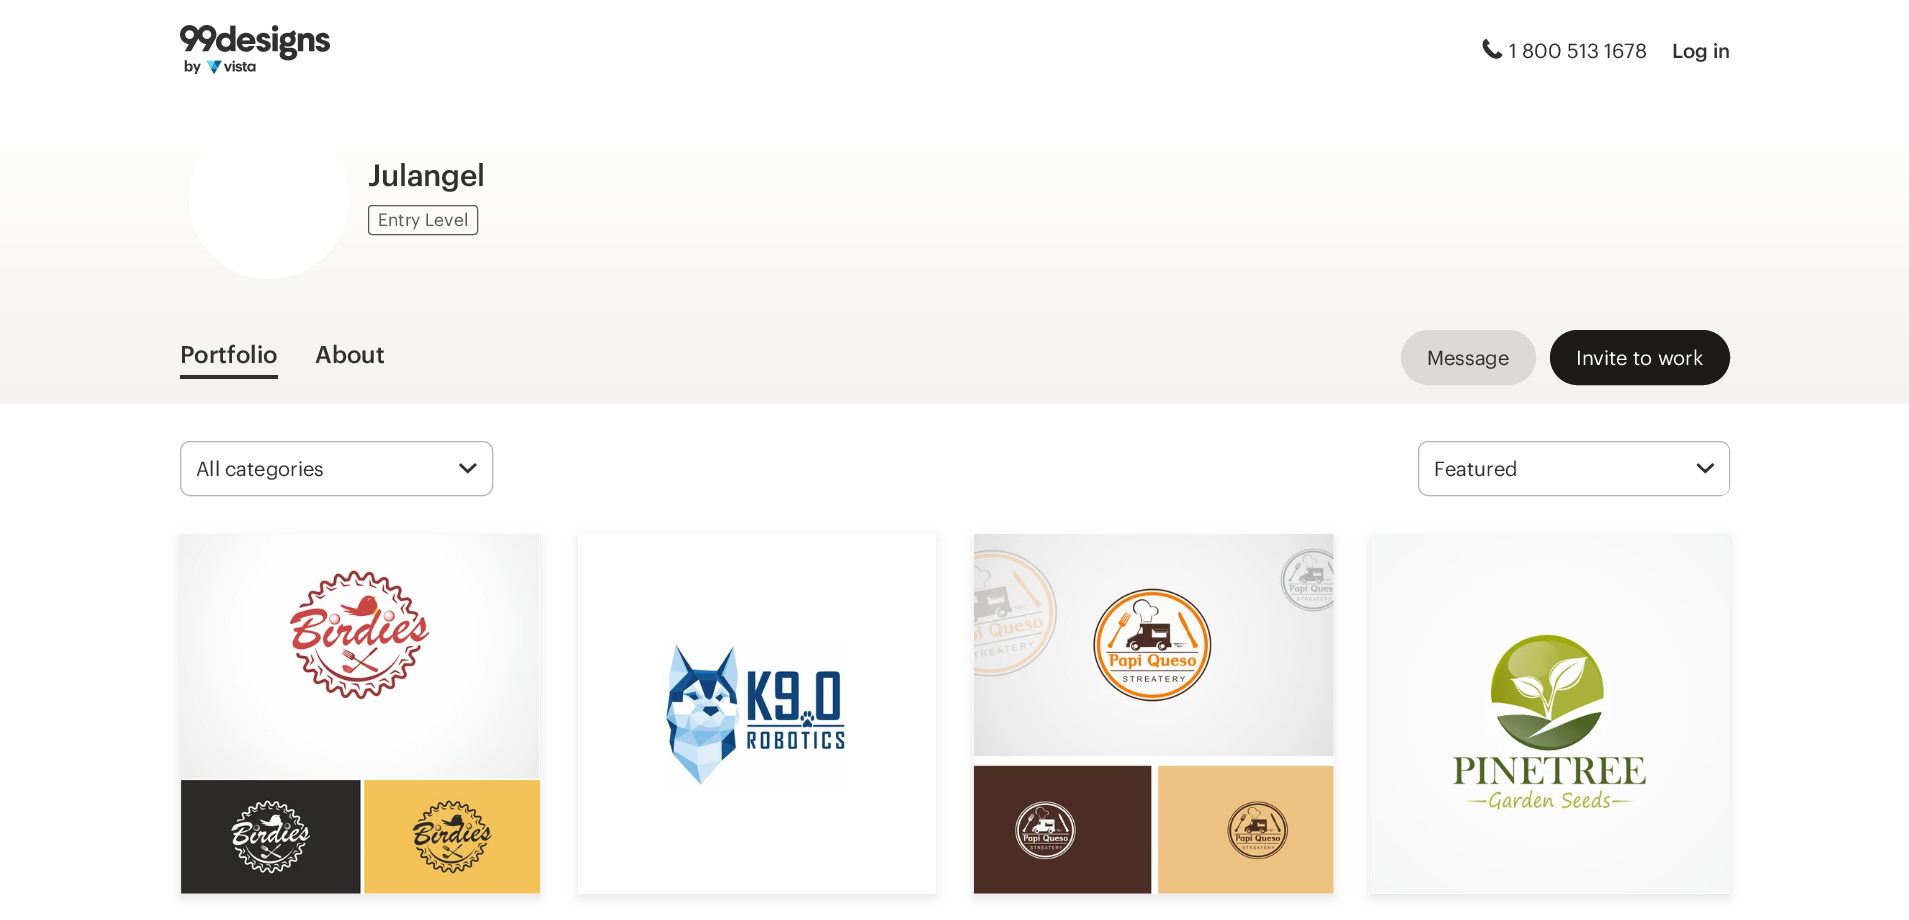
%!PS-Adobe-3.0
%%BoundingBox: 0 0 1909 920
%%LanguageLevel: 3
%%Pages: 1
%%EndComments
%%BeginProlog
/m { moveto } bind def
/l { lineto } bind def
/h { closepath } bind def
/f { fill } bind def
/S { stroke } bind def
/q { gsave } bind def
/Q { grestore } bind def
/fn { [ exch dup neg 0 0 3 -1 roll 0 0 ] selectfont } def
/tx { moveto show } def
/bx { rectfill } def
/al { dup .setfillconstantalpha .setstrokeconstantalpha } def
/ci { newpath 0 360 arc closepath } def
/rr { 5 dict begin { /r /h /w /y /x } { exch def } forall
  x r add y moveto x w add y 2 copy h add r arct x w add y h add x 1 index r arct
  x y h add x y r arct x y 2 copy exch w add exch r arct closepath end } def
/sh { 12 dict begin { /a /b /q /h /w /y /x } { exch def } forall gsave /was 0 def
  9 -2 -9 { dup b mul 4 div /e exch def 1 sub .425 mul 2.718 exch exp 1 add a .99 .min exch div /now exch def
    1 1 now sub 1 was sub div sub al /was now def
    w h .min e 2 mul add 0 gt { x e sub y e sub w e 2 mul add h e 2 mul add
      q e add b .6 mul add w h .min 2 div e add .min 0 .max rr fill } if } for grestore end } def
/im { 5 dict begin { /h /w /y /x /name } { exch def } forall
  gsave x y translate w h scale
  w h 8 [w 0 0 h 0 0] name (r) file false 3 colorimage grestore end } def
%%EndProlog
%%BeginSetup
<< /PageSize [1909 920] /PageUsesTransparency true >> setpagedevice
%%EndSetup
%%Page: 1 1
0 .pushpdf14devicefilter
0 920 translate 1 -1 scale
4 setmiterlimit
1 setgray
0 0 1909 920 bx
(image0.raw) 180 25 150 50 im
(image1.raw) 1482 38 21 21 im
/Graphik-Regular 20 fn
0.192 0.188 0.188 setrgbcolor
(1 800 513 1678) 1509 58 tx
/Graphik-Medium 20 fn
(Log in) 1672 58 tx
q 0 151 m 1909 151 l 1909 404 l 0 404 l h clip newpath
<< /ShadingType 2 /ColorSpace /DeviceRGB /Coords [955 100 955 404] /Extend [true true] /Function << /FunctionType 2 /Domain [0 1] /C0 [1 1 1] /C1 [0.953 0.949 0.941] /N 1 >> >> shfill Q
1 setgray
269 199 80 ci f
/Graphik-Medium 30 fn
0.192 0.188 0.188 setrgbcolor
368 186 m -0.25 0 (Julangel) ashow
0.357 0.353 0.345 setrgbcolor
368.5 205.5 109 29 3.5 rr S
/Graphik-Regular 17.5 fn
(Entry Level) 378 226 tx
/Graphik-Medium 23.75 fn
0.192 0.188 0.188 setrgbcolor
(Portfolio) 180 363 tx
180 375 98 4 bx
(About) 315 363 tx
0.855 0.851 0.843 setrgbcolor
1401.5 330.5 134 54 27 rr q f Q
S
/Graphik-Regular 20 fn
0.192 0.188 0.188 setrgbcolor
(Message) 1427 365 tx
0.11 0.106 0.102 setrgbcolor
1550.5 330.5 179 54 27 rr q f Q
S
1 setgray
(Invite to work) 1576 365 tx
0.714 0.71 0.702 setrgbcolor
180.5 441.5 312 54 9.5 rr S
0.192 0.188 0.188 setrgbcolor
(All categories) 196 476 tx
(image2.raw) 459 463 18 11 im
0.714 0.71 0.702 setrgbcolor
1418.5 441.5 311 54 9.5 rr S
0.192 0.188 0.188 setrgbcolor
(Featured) 1434 476 tx
q
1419 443 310 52 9 rr clip newpath
1 setgray
1675 440 61 59 0 6 1 sh
Q
q
1419 443 310 52 9 rr clip newpath
1 setgray
1683 448 46 43 bx
Q
(image3.raw) 1696 463 19 11 im
0 setgray
180 538 360 360 0 5.5 0.1 sh
1 setgray
180 893 360 1 bx
(image4.raw) 180 534 360 360 im
0 setgray
578 538 358 360 0 5.5 0.1 sh
1 setgray
578 534 358 360 bx
(image5.raw) 663 643 184 144 im
0 setgray
974 538 360 360 0 5.5 0.1 sh
1 setgray
974 534 360 360 bx
(image6.raw) 973 534 361 360 im
0 setgray
1371 538 359 360 0 5.5 0.1 sh
1 setgray
1371 534 359 360 bx
(image7.raw) 1371 534 359 360 im
.poppdf14devicefilter showpage
%%EOF
